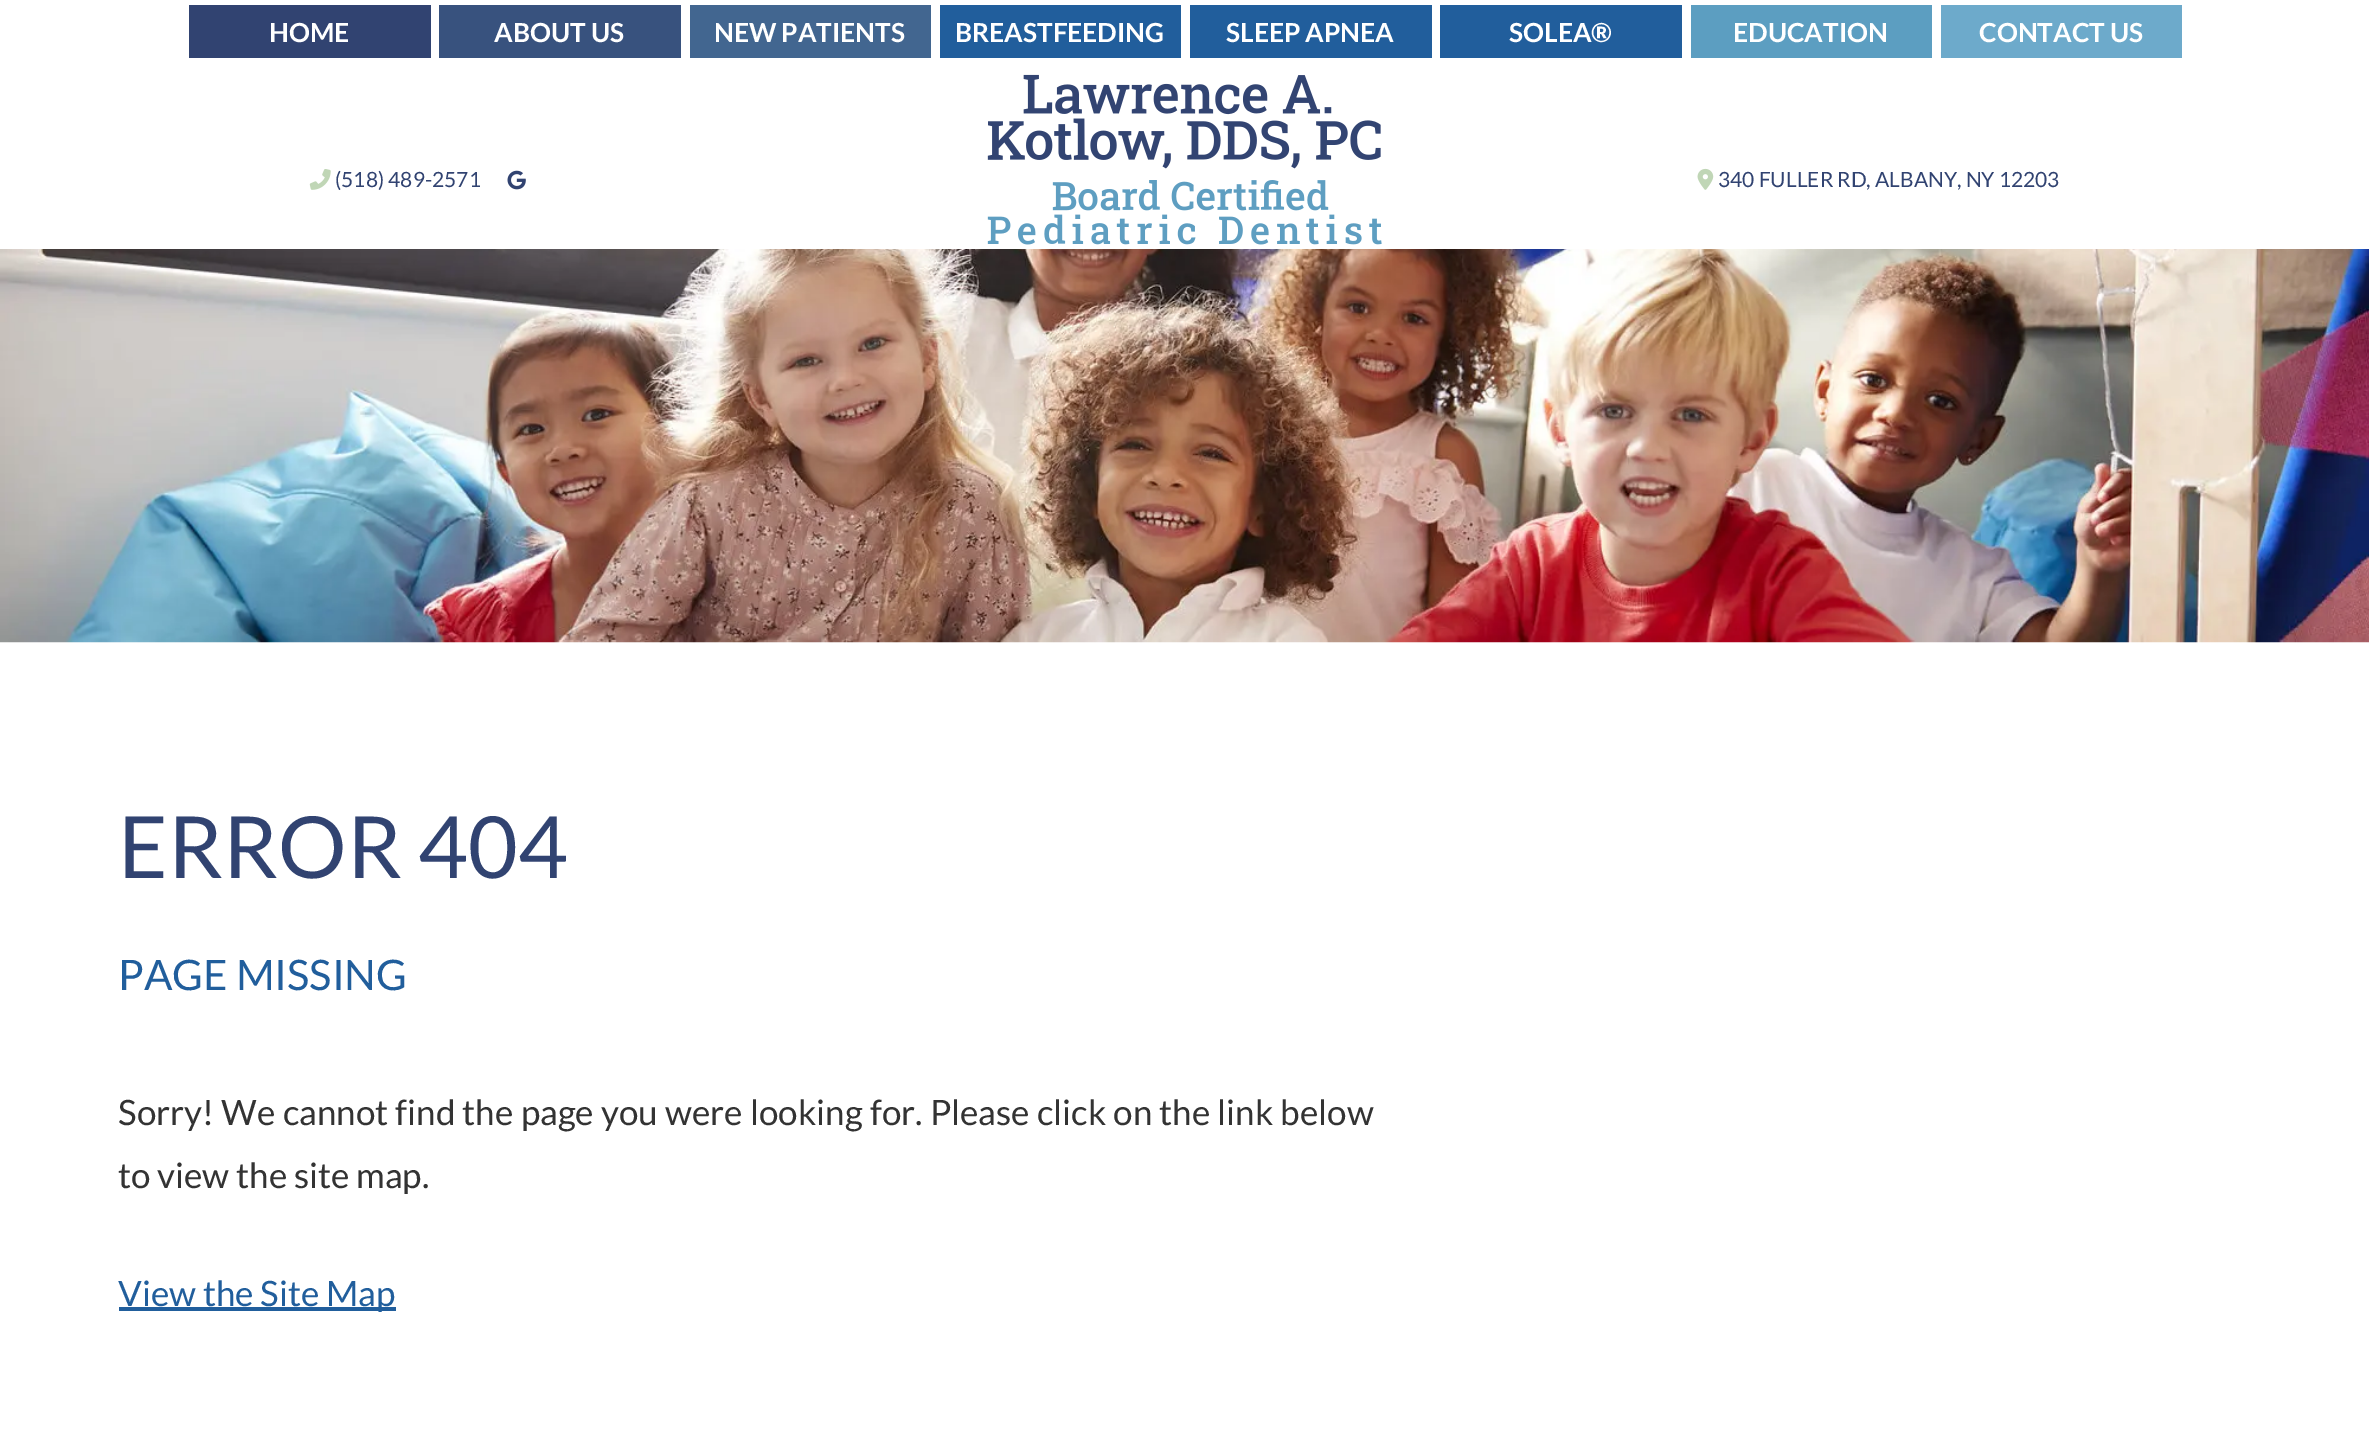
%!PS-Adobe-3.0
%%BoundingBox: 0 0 2369 1449
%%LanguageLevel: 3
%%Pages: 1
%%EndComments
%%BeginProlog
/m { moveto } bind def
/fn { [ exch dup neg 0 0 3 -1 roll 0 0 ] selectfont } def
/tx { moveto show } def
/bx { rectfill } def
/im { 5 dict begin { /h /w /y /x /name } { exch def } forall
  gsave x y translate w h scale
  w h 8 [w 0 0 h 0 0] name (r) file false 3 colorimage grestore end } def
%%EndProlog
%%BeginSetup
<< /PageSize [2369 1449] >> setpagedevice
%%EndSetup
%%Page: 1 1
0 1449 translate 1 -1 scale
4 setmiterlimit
1 setgray
0 0 2369 1449 bx
0.192 0.263 0.443 setrgbcolor
189 5 242 53 bx
/Lato-Bold 26.25 fn
1 setgray
(HOME) 269 42 tx
0.22 0.322 0.494 setrgbcolor
439 5 242 53 bx
1 setgray
(ABOUT US) 494 42 tx
0.259 0.4 0.565 setrgbcolor
690 5 241 53 bx
1 setgray
(NEW PATIENTS) 714 42 tx
0.129 0.369 0.612 setrgbcolor
940 5 241 53 bx
1 setgray
(BREASTFEEDING) 955 42 tx
0.129 0.369 0.612 setrgbcolor
1190 5 242 53 bx
1 setgray
(SLEEP APNEA) 1226 42 tx
0.129 0.369 0.612 setrgbcolor
1440 5 242 53 bx
1 setgray
(SOLEA®) 1509 42 tx
0.361 0.62 0.757 setrgbcolor
1691 5 241 53 bx
1 setgray
(EDUCATION) 1733 42 tx
0.427 0.667 0.796 setrgbcolor
1941 5 241 53 bx
1 setgray
(CONTACT US) 1979 42 tx
(image0.raw) 987 74 395 171 im
(image1.raw) 309 169 22 21 im
/Lato-Regular 21 fn
0.192 0.263 0.443 setrgbcolor
(\(518\) 489-2571) 335 187 tx
(image2.raw) 507 170 19 20 im
(image3.raw) 1697 168 17 22 im
(340 FULLER RD, ALBANY, NY 12203) 1718 187 tx
(image4.raw) 0 249 2369 394 im
/Lato-Regular 85.75 fn
(ERROR 404) 118 878 tx
/Lato-Regular 42 fn
0.129 0.369 0.612 setrgbcolor
(PAGE MISSING) 118 990 tx
/Lato-Regular 35 fn
0.2 setgray
118 1125 m 0.5 0 32 (Sorry! We cannot find the page you were looking for. Please click on the link below) widthshow
(to view the site map.) 118 1188 tx
0.129 0.369 0.612 setrgbcolor
119 1307 277 4 bx
(View the Site Map) 118 1306 tx
showpage
%%EOF
